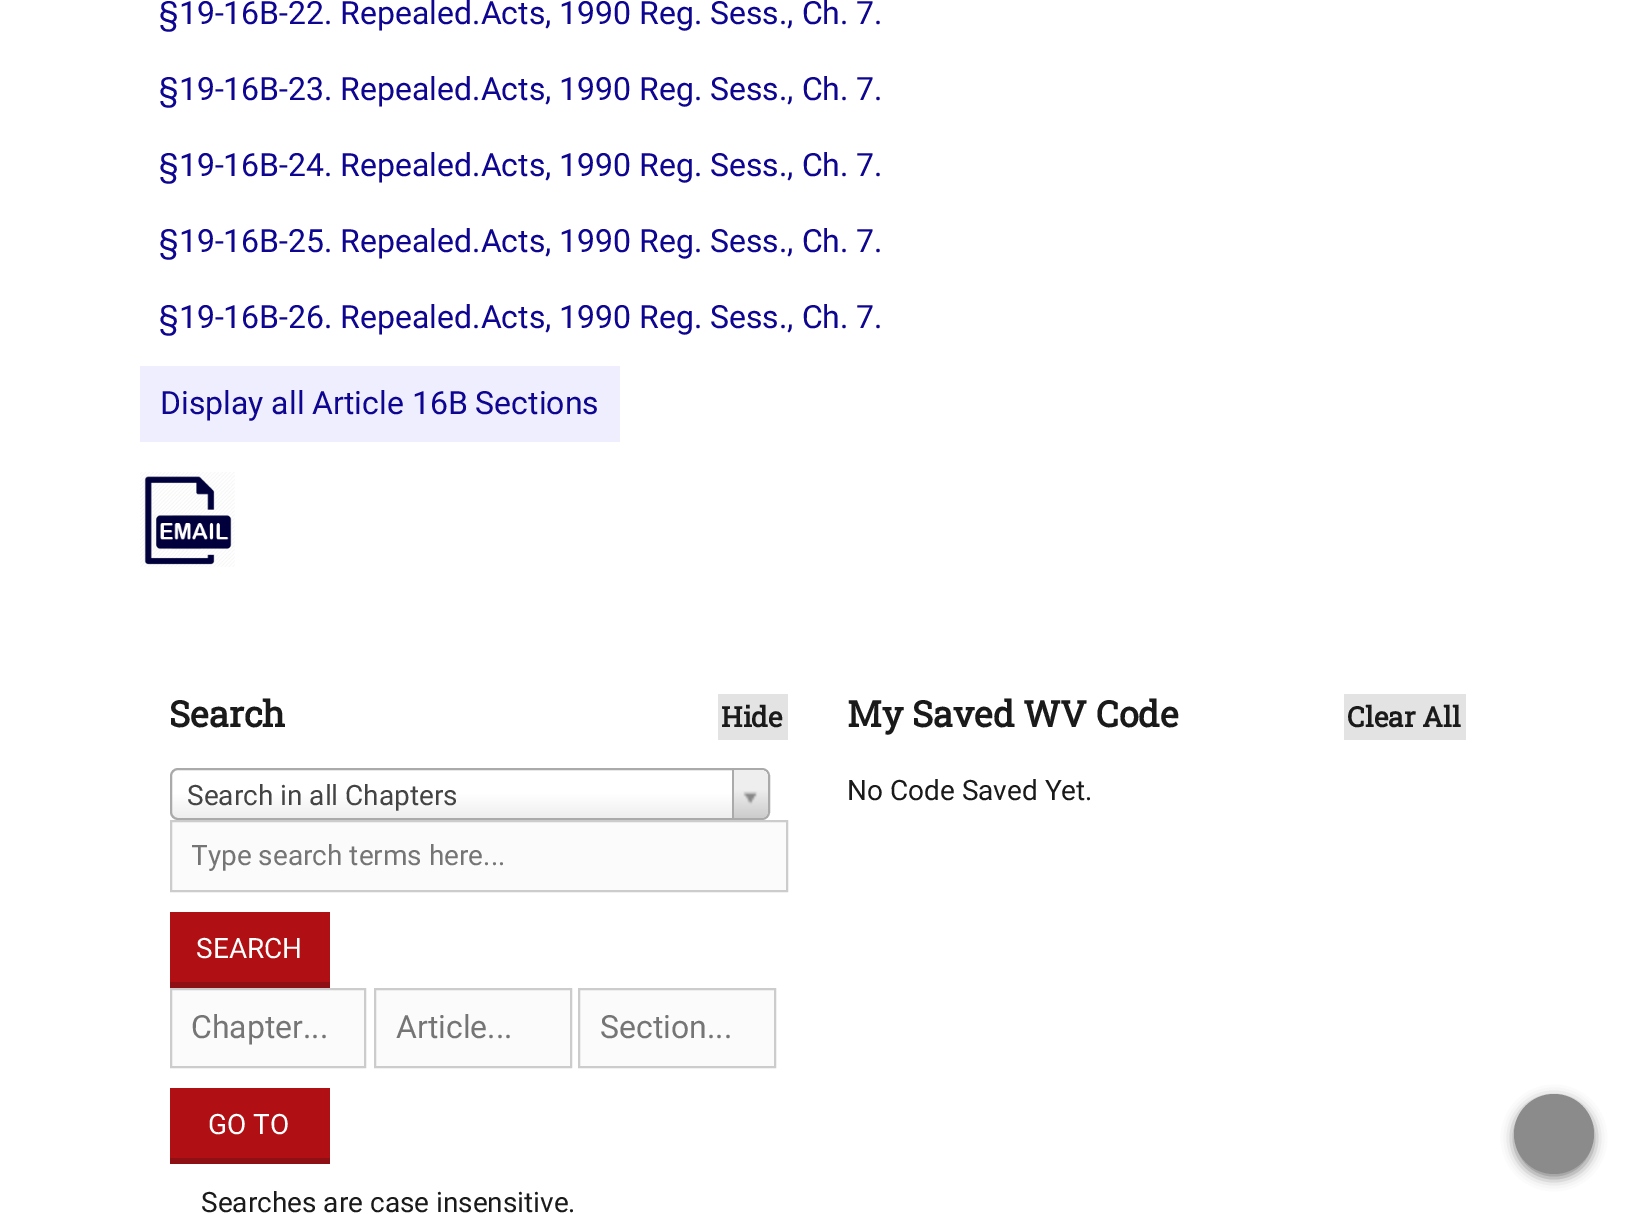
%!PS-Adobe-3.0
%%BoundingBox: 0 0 1634 1214
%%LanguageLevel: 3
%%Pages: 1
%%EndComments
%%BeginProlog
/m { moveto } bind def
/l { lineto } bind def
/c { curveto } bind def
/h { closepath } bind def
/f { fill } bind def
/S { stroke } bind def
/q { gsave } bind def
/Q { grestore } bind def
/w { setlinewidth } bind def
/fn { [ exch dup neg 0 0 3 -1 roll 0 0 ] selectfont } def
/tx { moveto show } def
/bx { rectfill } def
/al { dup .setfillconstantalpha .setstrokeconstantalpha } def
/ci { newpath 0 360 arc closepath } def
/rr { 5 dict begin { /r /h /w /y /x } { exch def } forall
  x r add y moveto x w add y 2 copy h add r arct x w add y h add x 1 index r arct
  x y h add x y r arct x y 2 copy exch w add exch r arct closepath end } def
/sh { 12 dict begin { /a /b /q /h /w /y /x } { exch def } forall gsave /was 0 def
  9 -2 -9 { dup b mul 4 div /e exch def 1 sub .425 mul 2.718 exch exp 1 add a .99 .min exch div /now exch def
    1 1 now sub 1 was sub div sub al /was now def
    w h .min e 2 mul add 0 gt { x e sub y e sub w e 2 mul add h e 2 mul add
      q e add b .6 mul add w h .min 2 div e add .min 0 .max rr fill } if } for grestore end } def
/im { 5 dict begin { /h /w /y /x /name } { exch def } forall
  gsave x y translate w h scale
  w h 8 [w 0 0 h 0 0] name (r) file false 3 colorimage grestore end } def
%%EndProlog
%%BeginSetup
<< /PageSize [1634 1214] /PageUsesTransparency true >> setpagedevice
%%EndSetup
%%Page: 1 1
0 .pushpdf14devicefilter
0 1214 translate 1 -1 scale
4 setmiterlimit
1 setgray
0 0 1634 1214 bx
/Roboto-Regular 32 fn
0.055 0.02 0.565 setrgbcolor
(§19-16B-22. Repealed.Acts, 1990 Reg. Sess., Ch. 7.) 159 24 tx
(§19-16B-23. Repealed.Acts, 1990 Reg. Sess., Ch. 7.) 159 100 tx
(§19-16B-24. Repealed.Acts, 1990 Reg. Sess., Ch. 7.) 159 176 tx
(§19-16B-25. Repealed.Acts, 1990 Reg. Sess., Ch. 7.) 159 252 tx
(§19-16B-26. Repealed.Acts, 1990 Reg. Sess., Ch. 7.) 159 328 tx
0.933 0.933 1 setrgbcolor
140 366 480 76 bx
0.055 0.02 0.565 setrgbcolor
(Display all Article 16B Sections) 160 414 tx
(image0.raw) 140 472 95 95 im
/RobotoSlab-Bold 36 fn
0.102 setgray
(Search) 169 727 tx
0.89 setgray
718 694 70 46 bx
/RobotoSlab-Bold 28 fn
0.102 setgray
(Hide) 721 727 tx
q 172 770 596 48 6 rr clip newpath
<< /ShadingType 2 /ColorSpace /DeviceRGB /Coords [470 818 470 770] /Extend [true true] /Function << /FunctionType 3 /Domain [0 1] /Functions [<< /FunctionType 2 /Domain [0 1] /C0 [0.933 0.933 0.933] /C1 [1 1 1] /N 1 >> << /FunctionType 2 /Domain [0 1] /C0 [1 1 1] /C1 [1 1 1] /N 1 >>] /Bounds [0.5] /Encode [0 1 0 1] >> >> shfill Q
0.667 setgray
2 w
171 769 598 50 7 rr S
/Roboto-Regular 28 fn
0.267 setgray
(Search in all Chapters) 187 805 tx
q 732 770 m 760 770 l 764.5 770 768 773.5 768 778 c 768 810 l 768 814.5 764.5 818 760 818 c 732 818 l h clip newpath
<< /ShadingType 2 /ColorSpace /DeviceRGB /Coords [751 818 751 770] /Extend [true true] /Function << /FunctionType 3 /Domain [0 1] /Functions [<< /FunctionType 2 /Domain [0 1] /C0 [0.8 0.8 0.8] /C1 [0.933 0.933 0.933] /N 1 >> << /FunctionType 2 /Domain [0 1] /C0 [0.933 0.933 0.933] /C1 [0.933 0.933 0.933] /N 1 >>] /Bounds [0.6] /Encode [0 1 0 1] >> >> shfill Q
0.667 setgray
732 770 2 48 bx
(image1.raw) 743 791 15 14 im
0.984 setgray
171 821 m 787 821 l 787 891 l 171 891 l h q f Q
0.8 setgray
S
q
192 840 546 32 rectclip
0.459 setgray
(Type search terms here...) 191 865 tx
Q
0.69 0.059 0.078 setrgbcolor
170 912 160 70 bx
0.561 0.063 0.078 setrgbcolor
170 982 160 6 bx
1 setgray
(SEARCH) 196 958 tx
0.984 setgray
171 989 m 365 989 l 365 1067 l 171 1067 l h q f Q
0.8 setgray
S
/Roboto-Regular 32 fn
0.459 setgray
(Chapter...) 191 1038 tx
0.984 setgray
375 989 m 571 989 l 571 1067 l 375 1067 l h q f Q
0.8 setgray
S
0.459 setgray
(Article...) 396 1038 tx
0.984 setgray
579 989 m 775 989 l 775 1067 l 579 1067 l h q f Q
0.8 setgray
S
0.459 setgray
(Section...) 600 1038 tx
0.69 0.059 0.078 setrgbcolor
170 1088 160 70 bx
0.561 0.063 0.078 setrgbcolor
170 1158 160 6 bx
/Roboto-Regular 28 fn
1 setgray
(GO TO) 208 1134 tx
0.102 setgray
(Searches are case insensitive.) 201 1212 tx
/RobotoSlab-Bold 36 fn
(My Saved WV Code) 847 727 tx
0.89 setgray
1344 694 122 46 bx
/RobotoSlab-Bold 28 fn
0.102 setgray
(Clear All) 1347 727 tx
/Roboto-Regular 28 fn
(No Code Saved Yet.) 847 800 tx
0.024 setgray
1514 1098 80 80 40 6 0.5 sh
0.545 setgray
1554 1134 40 ci f
.poppdf14devicefilter showpage
%%EOF
